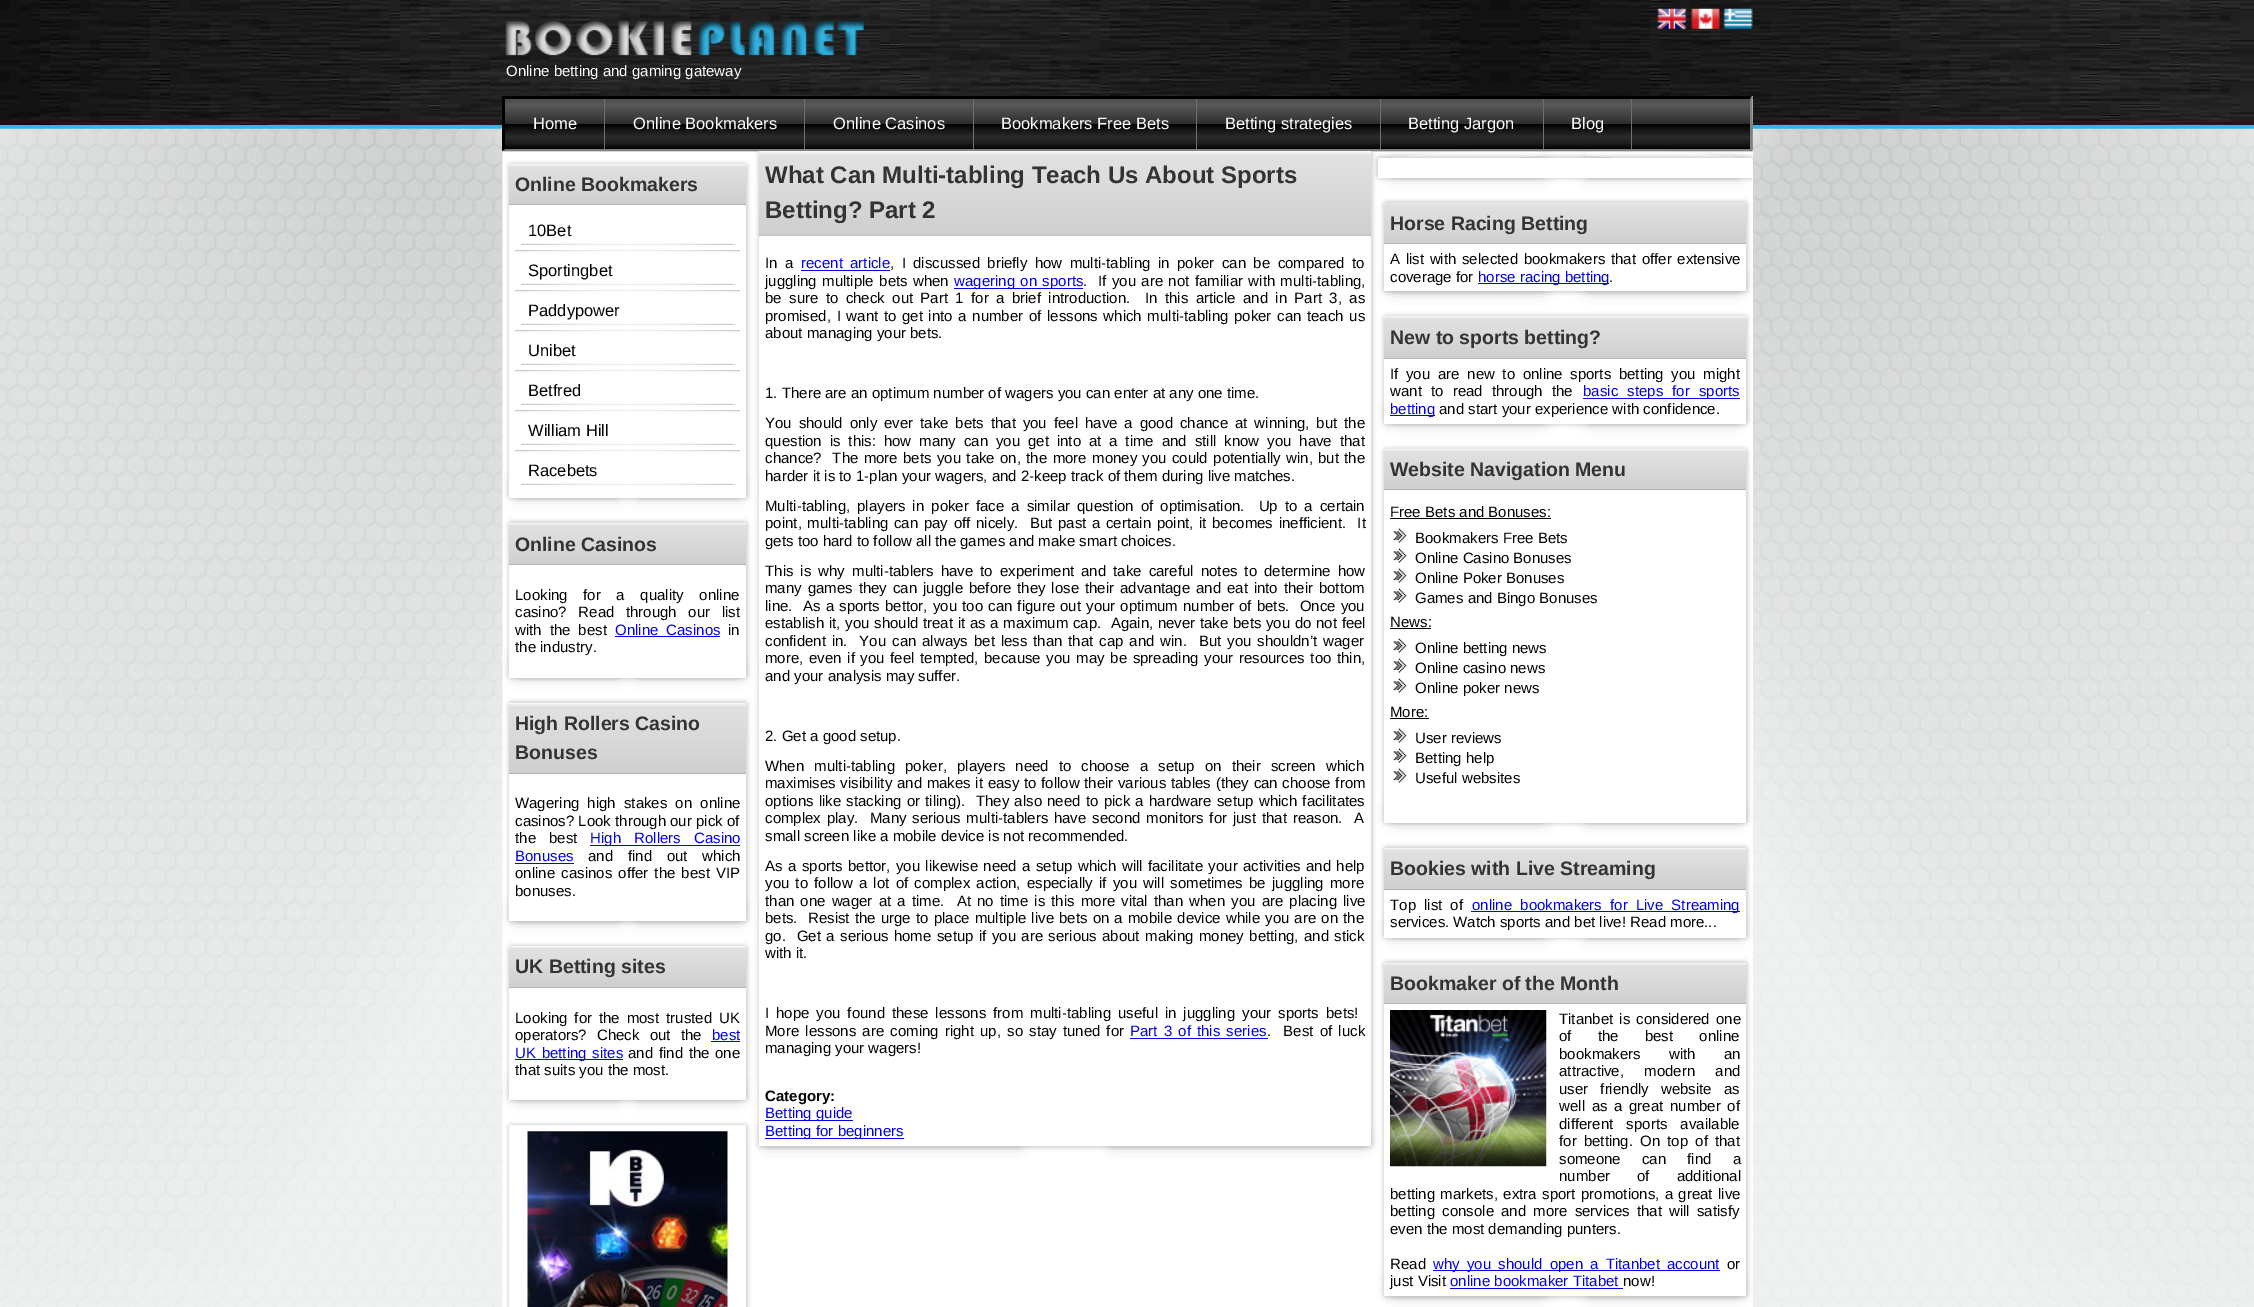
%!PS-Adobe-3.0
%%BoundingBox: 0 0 2254 1307
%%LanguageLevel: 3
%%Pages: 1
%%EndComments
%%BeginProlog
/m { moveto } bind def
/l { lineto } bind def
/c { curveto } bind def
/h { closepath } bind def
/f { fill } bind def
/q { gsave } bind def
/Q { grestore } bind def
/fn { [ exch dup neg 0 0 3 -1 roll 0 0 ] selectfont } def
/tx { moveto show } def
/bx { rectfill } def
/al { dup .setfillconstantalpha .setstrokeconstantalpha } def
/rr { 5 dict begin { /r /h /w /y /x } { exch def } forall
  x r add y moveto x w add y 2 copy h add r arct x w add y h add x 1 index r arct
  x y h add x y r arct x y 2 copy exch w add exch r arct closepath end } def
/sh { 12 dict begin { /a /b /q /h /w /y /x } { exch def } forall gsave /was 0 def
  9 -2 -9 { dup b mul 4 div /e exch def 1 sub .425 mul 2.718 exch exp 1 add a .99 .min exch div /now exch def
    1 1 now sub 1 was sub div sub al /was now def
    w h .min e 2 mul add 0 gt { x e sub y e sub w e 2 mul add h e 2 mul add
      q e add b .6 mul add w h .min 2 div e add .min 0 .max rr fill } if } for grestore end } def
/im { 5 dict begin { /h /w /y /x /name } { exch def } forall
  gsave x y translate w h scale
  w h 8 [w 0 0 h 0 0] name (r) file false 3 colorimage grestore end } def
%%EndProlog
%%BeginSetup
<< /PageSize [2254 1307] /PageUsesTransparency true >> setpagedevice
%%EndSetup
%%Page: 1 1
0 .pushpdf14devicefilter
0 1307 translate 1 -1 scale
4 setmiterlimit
1 setgray
0 0 2254 1307 bx
(image0.raw) 0 0 2254 125 im
0.2 0.71 0.898 setrgbcolor
0 125 2254 4 bx
(image1.raw) 1657 8 30 21 im
(image2.raw) 1691 8 29 21 im
(image3.raw) 1723 8 30 21 im
(image4.raw) 505 21 359 35 im
/LiberationSans-Regular 15 fn
1 setgray
(Online betting and gaming gateway) 506 76 tx
(image5.raw) 0 128 2254 1179 im
503 96 1250 1211 bx
(image6.raw) 502 96 1251 56 im
0 setgray
502 96 m 1752 96 l 1750 99 l 505 99 l h f
0.502 setgray
1752 96 m 1752 151 l 1750 149 l 1750 99 l h f
1752 151 m 502 151 l 505 149 l 1750 149 l h f
0 setgray
502 151 m 502 96 l 505 99 l 505 149 l h f
0.439 setgray
604 99 1 50 bx
/LiberationSans-Regular 16.5 fn
1 setgray
(Home) 533 129 tx
0.439 setgray
804 99 1 50 bx
1 setgray
(Online Bookmakers) 633 129 tx
0.439 setgray
973 99 1 50 bx
1 setgray
(Online Casinos) 833 129 tx
0.439 setgray
1196 99 1 50 bx
1 setgray
(Bookmakers Free Bets) 1001 129 tx
0.439 setgray
1380 99 1 50 bx
1 setgray
(Betting strategies) 1225 129 tx
0.439 setgray
1543 99 1 50 bx
1 setgray
(Betting Jargon) 1408 129 tx
0.439 setgray
1631 99 1 50 bx
1 setgray
(Blog) 1571 129 tx
0.827 setgray
508 163 240 336 4 2 1 sh
0 setgray
518 483 100 12 0 7.5 0.3 sh
638 483 100 12 0 7.5 0.3 sh
1 setgray
511.5 164 m 743.5 164 l 745 164 746 165 746 166.5 c 746 498 l 509 498 l 509 166.5 l 509 165 510 164 511.5 164 c h f
q 511.5 164 m 743.5 164 l 745 164 746 165 746 166.5 c 746 205 l 509 205 l 509 166.5 l 509 165 510 164 511.5 164 c h clip newpath
<< /ShadingType 2 /ColorSpace /DeviceRGB /Coords [628 164 628 205] /Extend [true true] /Function << /FunctionType 3 /Domain [0 1] /Functions [<< /FunctionType 2 /Domain [0 1] /C0 [0.984 0.984 0.984] /C1 [0.953 0.953 0.953] /N 1 >> << /FunctionType 2 /Domain [0 1] /C0 [0.953 0.953 0.953] /C1 [0.886 0.886 0.886] /N 1 >> << /FunctionType 2 /Domain [0 1] /C0 [0.886 0.886 0.886] /C1 [0.812 0.812 0.812] /N 1 >> << /FunctionType 2 /Domain [0 1] /C0 [0.812 0.812 0.812] /C1 [0.706 0.706 0.706] /N 1 >>] /Bounds [0.02 0.05 0.98] /Encode [0 1 0 1 0 1 0 1] >> >> shfill Q
/LiberationSans-Bold 19.5 fn
0.2 setgray
(Online Bookmakers) 515 191 tx
(image7.raw) 515 250 225 2 im
(image8.raw) 521 243 213 2 im
/LiberationSans-Regular 16.5 fn
0 setgray
(10Bet) 528 236 tx
(image7.raw) 515 290 225 2 im
(image8.raw) 521 283 213 2 im
(Sportingbet) 528 276 tx
(image7.raw) 515 330 225 2 im
(image8.raw) 521 323 213 2 im
(Paddypower) 528 316 tx
(image7.raw) 515 370 225 2 im
(image8.raw) 521 363 213 2 im
(Unibet) 528 356 tx
(image7.raw) 515 410 225 2 im
(image8.raw) 521 403 213 2 im
(Betfred) 528 396 tx
(image7.raw) 515 450 225 2 im
(image8.raw) 521 443 213 2 im
(William Hill) 528 436 tx
(image8.raw) 521 483 213 2 im
(Racebets) 528 476 tx
0.827 setgray
508 521 240 158 4 2 1 sh
0 setgray
518 663 100 12 0 7.5 0.3 sh
638 663 100 12 0 7.5 0.3 sh
1 setgray
511.5 523 m 743.5 523 l 745 523 746 524 746 525.5 c 746 678 l 509 678 l 509 525.5 l 509 524 510 523 511.5 523 c h f
q 511.5 523 m 743.5 523 l 745 523 746 524 746 525.5 c 746 565 l 509 565 l 509 525.5 l 509 524 510 523 511.5 523 c h clip newpath
<< /ShadingType 2 /ColorSpace /DeviceRGB /Coords [628 523 628 565] /Extend [true true] /Function << /FunctionType 3 /Domain [0 1] /Functions [<< /FunctionType 2 /Domain [0 1] /C0 [0.984 0.984 0.984] /C1 [0.953 0.953 0.953] /N 1 >> << /FunctionType 2 /Domain [0 1] /C0 [0.953 0.953 0.953] /C1 [0.886 0.886 0.886] /N 1 >> << /FunctionType 2 /Domain [0 1] /C0 [0.886 0.886 0.886] /C1 [0.812 0.812 0.812] /N 1 >> << /FunctionType 2 /Domain [0 1] /C0 [0.812 0.812 0.812] /C1 [0.706 0.706 0.706] /N 1 >>] /Bounds [0.02 0.05 0.98] /Encode [0 1 0 1 0 1 0 1] >> >> shfill Q
/LiberationSans-Bold 19.5 fn
0.2 setgray
(Online Casinos) 515 551 tx
/LiberationSans-Regular 15 fn
0 setgray
515 600 m 11.5 0 32 (Looking for a quality online) widthshow
515 617 m 7.5 0 32 (casino? Read through our list) widthshow
515 635 m 3.75 0 32 (with the best) widthshow
0 0 0.933 setrgbcolor
615 635 m 3.75 0 32 (Online Casinos) widthshow
615 636 105 1 bx
0 setgray
(in) 728 635 tx
(the industry.) 515 652 tx
0.827 setgray
508 701 240 222 4 2 1 sh
0 setgray
518 906 100 13 0 7.5 0.3 sh
638 906 100 13 0 7.5 0.3 sh
1 setgray
511.5 703 m 743.5 703 l 745 703 746 704 746 705.5 c 746 921 l 509 921 l 509 705.5 l 509 704 510 703 511.5 703 c h f
q 511.5 703 m 743.5 703 l 745 703 746 704 746 705.5 c 746 774 l 509 774 l 509 705.5 l 509 704 510 703 511.5 703 c h clip newpath
<< /ShadingType 2 /ColorSpace /DeviceRGB /Coords [628 703 628 774] /Extend [true true] /Function << /FunctionType 3 /Domain [0 1] /Functions [<< /FunctionType 2 /Domain [0 1] /C0 [0.984 0.984 0.984] /C1 [0.953 0.953 0.953] /N 1 >> << /FunctionType 2 /Domain [0 1] /C0 [0.953 0.953 0.953] /C1 [0.886 0.886 0.886] /N 1 >> << /FunctionType 2 /Domain [0 1] /C0 [0.886 0.886 0.886] /C1 [0.812 0.812 0.812] /N 1 >> << /FunctionType 2 /Domain [0 1] /C0 [0.812 0.812 0.812] /C1 [0.706 0.706 0.706] /N 1 >>] /Bounds [0.02 0.05 0.98] /Encode [0 1 0 1 0 1 0 1] >> >> shfill Q
/LiberationSans-Bold 19.5 fn
0.2 setgray
(High Rollers Casino) 515 730 tx
(Bonuses) 515 759 tx
/LiberationSans-Regular 15 fn
0 setgray
515 808 m 4 0 32 (Wagering high stakes on online) widthshow
(casinos? Look through our pick of) 515 826 tx
515 843 m 9 0 32 (the best) widthshow
0 0 0.933 setrgbcolor
590 845 150 1 bx
590 843 m 9 0 32 (High Rollers Casino) widthshow
(Bonuses) 515 861 tx
515 863 59 1 bx
0 setgray
588 861 m 10.5 0 32 (and find out which) widthshow
515 878 m 2 0 32 (online casinos offer the best VIP) widthshow
(bonuses.) 515 896 tx
0.827 setgray
508 945 240 156 4 2 1 sh
0 setgray
518 1085 100 13 0 7.5 0.3 sh
638 1085 100 13 0 7.5 0.3 sh
1 setgray
511.5 946 m 743.5 946 l 745 946 746 947 746 948.5 c 746 1100 l 509 1100 l 509 948.5 l 509 947 510 946 511.5 946 c h f
q 511.5 946 m 743.5 946 l 745 946 746 947 746 948.5 c 746 988 l 509 988 l 509 948.5 l 509 947 510 946 511.5 946 c h clip newpath
<< /ShadingType 2 /ColorSpace /DeviceRGB /Coords [628 946 628 988] /Extend [true true] /Function << /FunctionType 3 /Domain [0 1] /Functions [<< /FunctionType 2 /Domain [0 1] /C0 [0.984 0.984 0.984] /C1 [0.953 0.953 0.953] /N 1 >> << /FunctionType 2 /Domain [0 1] /C0 [0.953 0.953 0.953] /C1 [0.886 0.886 0.886] /N 1 >> << /FunctionType 2 /Domain [0 1] /C0 [0.886 0.886 0.886] /C1 [0.812 0.812 0.812] /N 1 >> << /FunctionType 2 /Domain [0 1] /C0 [0.812 0.812 0.812] /C1 [0.706 0.706 0.706] /N 1 >>] /Bounds [0.02 0.05 0.98] /Encode [0 1 0 1 0 1 0 1] >> >> shfill Q
/LiberationSans-Bold 19.5 fn
0.2 setgray
(UK Betting sites) 515 973 tx
/LiberationSans-Regular 15 fn
0 setgray
515 1023 m 2.75 0 32 (Looking for the most trusted UK) widthshow
515 1040 m 6 0 32 (operators? Check out the) widthshow
0 0 0.933 setrgbcolor
(best) 712 1040 tx
711 1041 29 1 bx
515 1059 108 1 bx
515 1058 m 1.5 0 32 (UK betting sites) widthshow
0 setgray
628 1058 m 1.5 0 32 (and find the one) widthshow
(that suits you the most.) 515 1075 tx
0.827 setgray
508 1124 240 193 4 2 1 sh
1 setgray
511.5 1125 m 743.5 1125 l 745 1125 746 1126 746 1127.5 c 746 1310 l 509 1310 l 509 1127.5 l 509 1126 510 1125 511.5 1125 c h f
(image9.raw) 527 1131 201 176 im
q
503 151 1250 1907 rectclip
0.827 setgray
758 150 615 88 4 2 1 sh
Q
q 761.5 151 m 1368.5 151 l 1370 151 1371 152 1371 153.5 c 1371 236 l 759 236 l 759 153.5 l 759 152 760 151 761.5 151 c h clip newpath
<< /ShadingType 2 /ColorSpace /DeviceRGB /Coords [1065 151 1065 236] /Extend [true true] /Function << /FunctionType 3 /Domain [0 1] /Functions [<< /FunctionType 2 /Domain [0 1] /C0 [0.984 0.984 0.984] /C1 [0.953 0.953 0.953] /N 1 >> << /FunctionType 2 /Domain [0 1] /C0 [0.953 0.953 0.953] /C1 [0.886 0.886 0.886] /N 1 >> << /FunctionType 2 /Domain [0 1] /C0 [0.886 0.886 0.886] /C1 [0.812 0.812 0.812] /N 1 >> << /FunctionType 2 /Domain [0 1] /C0 [0.812 0.812 0.812] /C1 [0.706 0.706 0.706] /N 1 >>] /Bounds [0.02 0.05 0.98] /Encode [0 1 0 1 0 1 0 1] >> >> shfill Q
/LiberationSans-Bold 24 fn
0.2 setgray
(What Can Multi-tabling Teach Us About Sports) 765 183 tx
(Betting? Part 2) 765 218 tx
0.827 setgray
758 235 615 913 4 2 1 sh
0 setgray
768 1131 250 13 0 7.5 0.3 sh
1113 1131 250 13 0 7.5 0.3 sh
1 setgray
761.5 236 m 1368.5 236 l 1370 236 1371 237 1371 238.5 c 1371 1146 l 759 1146 l 759 238.5 l 759 237 760 236 761.5 236 c h f
/LiberationSans-Regular 15 fn
0 setgray
765 268 m 3.25 0 32 (In a) widthshow
0 0 0.933 setrgbcolor
801 268 m 3.25 0 32 (recent article) widthshow
801 270 89 1 bx
0 setgray
890 268 m 3.25 0 32 (, I discussed briefly how multi-tabling in poker can be compared to) widthshow
765 286 m 1.25 0 32 (juggling multiple bets when) widthshow
0 0 0.933 setrgbcolor
954 288 129 1 bx
954 286 m 1.25 0 32 (wagering on sports) widthshow
0 setgray
1083 286 m 1.25 0 32 (.  If you are not familiar with multi-tabling,) widthshow
765 303 m 3.25 0 32 (be sure to check out Part 1 for a brief introduction.  In this article and in Part 3, as) widthshow
765 321 m 1.5 0 32 (promised, I want to get into a number of lessons which multi-tabling poker can teach us) widthshow
(about managing your bets.) 765 338 tx
(1. There are an optimum number of wagers you can enter at any one time.) 765 398 tx
765 428 m 2.75 0 32 (You should only ever take bets that you feel have a good chance at winning, but the) widthshow
765 446 m 3.75 0 32 (question is this: how many can you get into at a time and still know you have that) widthshow
765 463 m 1.2 0 32 (chance?  The more bets you take on, the more money you could potentially win, but the) widthshow
(harder it is to 1-plan your wagers, and 2-keep track of them during live matches.) 765 481 tx
765 511 m 2.9 0 32 (Multi-tabling, players in poker face a similar question of optimisation.  Up to a certain) widthshow
765 528 m 1.5 0 32 (point, multi-tabling can pay off nicely.  But past a certain point, it becomes inefficient.  It) widthshow
(gets too hard to follow all the games and make smart choices.) 765 546 tx
765 576 m 2.9 0 32 (This is why multi-tablers have to experiment and take careful notes to determine how) widthshow
765 593 m 1.75 0 32 (many games they can juggle before they lose their advantage and eat into their bottom) widthshow
765 611 m 1 0 32 (line.  As a sports bettor, you too can figure out your optimum number of bets.  Once you) widthshow
765 628 m 0.5 0 32 (establish it, you should treat it as a maximum cap.  Again, never take bets you do not feel) widthshow
765 646 m 1.75 0 32 (confident in.  You can always bet less than that cap and win.  But you shouldn’t wager) widthshow
765 663 m 1.5 0 32 (more, even if you feel tempted, because you may be spreading your resources too thin,) widthshow
(and your analysis may suffer.) 765 681 tx
(2. Get a good setup.) 765 741 tx
765 771 m 5.9 0 32 (When multi-tabling poker, players need to choose a setup on their screen which) widthshow
765 788 m 0.5 0 32 (maximises visibility and makes it easy to follow their various tables \(they can choose from) widthshow
765 806 m 1.1 0 32 (options like stacking or tiling\).  They also need to pick a hardware setup which facilitates) widthshow
765 823 m 1.6 0 32 (complex play.  Many serious multi-tablers have second monitors for just that reason.  A) widthshow
(small screen like a mobile device is not recommended.) 765 841 tx
765 871 m 1.25 0 32 (As a sports bettor, you likewise need a setup which will facilitate your activities and help) widthshow
765 888 m 2.1 0 32 (you to follow a lot of complex action, especially if you will sometimes be juggling more) widthshow
765 906 m 2 0 32 (than one wager at a time.  At no time is this more vital than when you are placing live) widthshow
765 923 m 1 0 32 (bets.  Resist the urge to place multiple live bets on a mobile device while you are on the) widthshow
765 941 m 1.25 0 32 (go.  Get a serious home setup if you are serious about making money betting, and stick) widthshow
(with it.) 765 958 tx
765 1018 m 2.75 0 32 (I hope you found these lessons from multi-tabling useful in juggling your sports bets!) widthshow
765 1036 m 2 0 32 (More lessons are coming right up, so stay tuned for) widthshow
0 0 0.933 setrgbcolor
1130 1036 m 2 0 32 (Part 3 of this series) widthshow
1130 1038 138 1 bx
0 setgray
1267 1036 m 2 0 32 (.  Best of luck) widthshow
(managing your wagers!) 765 1053 tx
/LiberationSans-Bold 15 fn
(Category:) 765 1101 tx
0 0 0.933 setrgbcolor
765 1120 88 1 bx
/LiberationSans-Regular 15 fn
(Betting guide) 765 1118 tx
765 1138 139 1 bx
(Betting for beginners) 765 1136 tx
q
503 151 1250 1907 rectclip
0.827 setgray
1376 156 378 23 4 2 1 sh
Q
q
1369 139 m 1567 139 l 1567 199 l 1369 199 l h 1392 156.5 m 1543 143.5 l 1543 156 l 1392 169 l h eoclip newpath
0 setgray
1393 163 150 12 0 7.5 0.3 sh
Q
q
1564 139 m 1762 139 l 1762 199 l 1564 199 l h 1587 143.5 m 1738 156.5 l 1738 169 l 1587 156 l h eoclip newpath
0 setgray
1588 163 150 12 0 7.5 0.3 sh
Q
1 setgray
1380.5 158 m 1750.5 158 l 1752 158 1753 159 1753 160.5 c 1753 178 l 1378 178 l 1378 160.5 l 1378 159 1379 158 1380.5 158 c h f
0.827 setgray
1383 201 365 92 4 2 1 sh
0 setgray
1393 276 150 13 0 7.5 0.3 sh
1588 276 150 13 0 7.5 0.3 sh
1 setgray
1386.5 203 m 1743.5 203 l 1745 203 1746 204 1746 205.5 c 1746 291 l 1384 291 l 1384 205.5 l 1384 204 1385 203 1386.5 203 c h f
q 1386.5 203 m 1743.5 203 l 1745 203 1746 204 1746 205.5 c 1746 244 l 1384 244 l 1384 205.5 l 1384 204 1385 203 1386.5 203 c h clip newpath
<< /ShadingType 2 /ColorSpace /DeviceRGB /Coords [1565 202 1565 244] /Extend [true true] /Function << /FunctionType 3 /Domain [0 1] /Functions [<< /FunctionType 2 /Domain [0 1] /C0 [0.984 0.984 0.984] /C1 [0.953 0.953 0.953] /N 1 >> << /FunctionType 2 /Domain [0 1] /C0 [0.953 0.953 0.953] /C1 [0.886 0.886 0.886] /N 1 >> << /FunctionType 2 /Domain [0 1] /C0 [0.886 0.886 0.886] /C1 [0.812 0.812 0.812] /N 1 >> << /FunctionType 2 /Domain [0 1] /C0 [0.812 0.812 0.812] /C1 [0.706 0.706 0.706] /N 1 >>] /Bounds [0.02 0.05 0.98] /Encode [0 1 0 1 0 1 0 1] >> >> shfill Q
/LiberationSans-Bold 19.5 fn
0.2 setgray
(Horse Racing Betting) 1390 230 tx
/LiberationSans-Regular 15 fn
0 setgray
1390 264 m 1.5 0 32 (A list with selected bookmakers that offer extensive) widthshow
(coverage for) 1390 282 tx
0 0 0.933 setrgbcolor
1478 283 131 1 bx
(horse racing betting) 1478 282 tx
0 setgray
(.) 1609 282 tx
0.827 setgray
1383 315 365 110 4 2 1 sh
0 setgray
1393 409 150 12 0 7.5 0.3 sh
1588 409 150 12 0 7.5 0.3 sh
1 setgray
1386.5 316 m 1743.5 316 l 1745 316 1746 317 1746 318.5 c 1746 424 l 1384 424 l 1384 318.5 l 1384 317 1385 316 1386.5 316 c h f
q 1386.5 316 m 1743.5 316 l 1745 316 1746 317 1746 318.5 c 1746 359 l 1384 359 l 1384 318.5 l 1384 317 1385 316 1386.5 316 c h clip newpath
<< /ShadingType 2 /ColorSpace /DeviceRGB /Coords [1565 316 1565 359] /Extend [true true] /Function << /FunctionType 3 /Domain [0 1] /Functions [<< /FunctionType 2 /Domain [0 1] /C0 [0.984 0.984 0.984] /C1 [0.953 0.953 0.953] /N 1 >> << /FunctionType 2 /Domain [0 1] /C0 [0.953 0.953 0.953] /C1 [0.886 0.886 0.886] /N 1 >> << /FunctionType 2 /Domain [0 1] /C0 [0.886 0.886 0.886] /C1 [0.812 0.812 0.812] /N 1 >> << /FunctionType 2 /Domain [0 1] /C0 [0.812 0.812 0.812] /C1 [0.706 0.706 0.706] /N 1 >>] /Bounds [0.02 0.05 0.98] /Encode [0 1 0 1 0 1 0 1] >> >> shfill Q
/LiberationSans-Bold 19.5 fn
0.2 setgray
(New to sports betting?) 1390 344 tx
/LiberationSans-Regular 15 fn
0 setgray
1390 379 m 3.5 0 32 (If you are new to online sports betting you might) widthshow
1390 396 m 5 0 32 (want to read through the) widthshow
0 0 0.933 setrgbcolor
1583 398 157 1 bx
1583 396 m 5 0 32 (basic steps for sports) widthshow
1390 415 45 1 bx
(betting) 1390 414 tx
0 setgray
(and start your experience with confidence.) 1439 414 tx
0.827 setgray
1383 448 365 376 4 2 1 sh
0 setgray
1393 808 150 12 0 7.5 0.3 sh
1588 808 150 12 0 7.5 0.3 sh
1 setgray
1386.5 449 m 1743.5 449 l 1745 449 1746 450 1746 451.5 c 1746 823 l 1384 823 l 1384 451.5 l 1384 450 1385 449 1386.5 449 c h f
q 1386.5 449 m 1743.5 449 l 1745 449 1746 450 1746 451.5 c 1746 490 l 1384 490 l 1384 451.5 l 1384 450 1385 449 1386.5 449 c h clip newpath
<< /ShadingType 2 /ColorSpace /DeviceRGB /Coords [1565 449 1565 490] /Extend [true true] /Function << /FunctionType 3 /Domain [0 1] /Functions [<< /FunctionType 2 /Domain [0 1] /C0 [0.984 0.984 0.984] /C1 [0.953 0.953 0.953] /N 1 >> << /FunctionType 2 /Domain [0 1] /C0 [0.953 0.953 0.953] /C1 [0.886 0.886 0.886] /N 1 >> << /FunctionType 2 /Domain [0 1] /C0 [0.886 0.886 0.886] /C1 [0.812 0.812 0.812] /N 1 >> << /FunctionType 2 /Domain [0 1] /C0 [0.812 0.812 0.812] /C1 [0.706 0.706 0.706] /N 1 >>] /Bounds [0.02 0.05 0.98] /Encode [0 1 0 1 0 1 0 1] >> >> shfill Q
/LiberationSans-Bold 19.5 fn
0.2 setgray
(Website Navigation Menu) 1390 476 tx
/LiberationSans-Regular 15 fn
0 setgray
(Free Bets and Bonuses:) 1390 517 tx
1390 518 161 1 bx
(image10.raw) 1393 528 14 15 im
(Bookmakers Free Bets) 1415 543 tx
(image10.raw) 1393 548 14 15 im
(Online Casino Bonuses) 1415 563 tx
(image10.raw) 1393 568 14 15 im
(Online Poker Bonuses) 1415 583 tx
(image10.raw) 1393 588 14 15 im
(Games and Bingo Bonuses) 1415 603 tx
(News:) 1390 627 tx
1390 628 41 1 bx
(image10.raw) 1393 638 14 15 im
(Online betting news) 1415 653 tx
(image10.raw) 1393 658 14 15 im
(Online casino news) 1415 673 tx
(image10.raw) 1393 678 14 15 im
(Online poker news) 1415 693 tx
(More:) 1390 717 tx
1390 718 39 1 bx
(image10.raw) 1393 728 14 15 im
(User reviews) 1415 743 tx
(image10.raw) 1393 748 14 15 im
(Betting help) 1415 763 tx
(image10.raw) 1393 768 14 15 im
(Useful websites) 1415 783 tx
0.827 setgray
1383 846 365 93 4 2 1 sh
0 setgray
1393 923 150 12 0 7.5 0.3 sh
1588 923 150 12 0 7.5 0.3 sh
1 setgray
1386.5 848 m 1743.5 848 l 1745 848 1746 849 1746 850.5 c 1746 938 l 1384 938 l 1384 850.5 l 1384 849 1385 848 1386.5 848 c h f
q 1386.5 848 m 1743.5 848 l 1745 848 1746 849 1746 850.5 c 1746 890 l 1384 890 l 1384 850.5 l 1384 849 1385 848 1386.5 848 c h clip newpath
<< /ShadingType 2 /ColorSpace /DeviceRGB /Coords [1565 848 1565 890] /Extend [true true] /Function << /FunctionType 3 /Domain [0 1] /Functions [<< /FunctionType 2 /Domain [0 1] /C0 [0.984 0.984 0.984] /C1 [0.953 0.953 0.953] /N 1 >> << /FunctionType 2 /Domain [0 1] /C0 [0.953 0.953 0.953] /C1 [0.886 0.886 0.886] /N 1 >> << /FunctionType 2 /Domain [0 1] /C0 [0.886 0.886 0.886] /C1 [0.812 0.812 0.812] /N 1 >> << /FunctionType 2 /Domain [0 1] /C0 [0.812 0.812 0.812] /C1 [0.706 0.706 0.706] /N 1 >>] /Bounds [0.02 0.05 0.98] /Encode [0 1 0 1 0 1 0 1] >> >> shfill Q
/LiberationSans-Bold 19.5 fn
0.2 setgray
(Bookies with Live Streaming) 1390 875 tx
/LiberationSans-Regular 15 fn
0 setgray
1390 910 m 4 0 32 (Top list of) widthshow
0 0 0.933 setrgbcolor
1471 911 269 1 bx
1472 910 m 4 0 32 (online bookmakers for Live Streaming) widthshow
0 setgray
(services. Watch sports and bet live! Read more...) 1390 927 tx
0.827 setgray
1383 961 365 337 4 2 1 sh
0 setgray
1393 1281 150 13 0 7.5 0.3 sh
1588 1281 150 13 0 7.5 0.3 sh
1 setgray
1386.5 963 m 1743.5 963 l 1745 963 1746 964 1746 965.5 c 1746 1296 l 1384 1296 l 1384 965.5 l 1384 964 1385 963 1386.5 963 c h f
q 1386.5 963 m 1743.5 963 l 1745 963 1746 964 1746 965.5 c 1746 1004 l 1384 1004 l 1384 965.5 l 1384 964 1385 963 1386.5 963 c h clip newpath
<< /ShadingType 2 /ColorSpace /DeviceRGB /Coords [1565 963 1565 1004] /Extend [true true] /Function << /FunctionType 3 /Domain [0 1] /Functions [<< /FunctionType 2 /Domain [0 1] /C0 [0.984 0.984 0.984] /C1 [0.953 0.953 0.953] /N 1 >> << /FunctionType 2 /Domain [0 1] /C0 [0.953 0.953 0.953] /C1 [0.886 0.886 0.886] /N 1 >> << /FunctionType 2 /Domain [0 1] /C0 [0.886 0.886 0.886] /C1 [0.812 0.812 0.812] /N 1 >> << /FunctionType 2 /Domain [0 1] /C0 [0.812 0.812 0.812] /C1 [0.706 0.706 0.706] /N 1 >>] /Bounds [0.02 0.05 0.98] /Encode [0 1 0 1 0 1 0 1] >> >> shfill Q
/LiberationSans-Bold 19.5 fn
0.2 setgray
(Bookmaker of the Month) 1390 990 tx
(image11.raw) 1390 1010 157 157 im
/LiberationSans-Regular 15 fn
0 setgray
1559 1024 m 2 0 32 (Titanbet is considered one) widthshow
1559 1041 m 22 0 32 (of the best online) widthshow
1559 1059 m 24 0 32 (bookmakers with an) widthshow
1559 1076 m 16 0 32 (attractive, modern and) widthshow
1559 1094 m 8 0 32 (user friendly website as) widthshow
1559 1111 m 2.5 0 32 (well as a great number of) widthshow
1559 1129 m 9 0 32 (different sports available) widthshow
1559 1146 m 3 0 32 (for betting. On top of that) widthshow
1559 1164 m 17 0 32 (someone can find a) widthshow
1559 1181 m 23 0 32 (number of additional) widthshow
1390 1199 m 1.25 0 32 (betting markets, extra sport promotions, a great live) widthshow
1390 1216 m 3 0 32 (betting console and more services that will satisfy) widthshow
(even the most demanding punters.) 1390 1234 tx
(Read) 1390 1269 tx
0 0 0.933 setrgbcolor
1433 1270 287 1 bx
1433 1269 m 3 0 32 (why you should open a Titanbet account) widthshow
0 setgray
(or) 1727 1269 tx
(just Visit) 1390 1286 tx
0 0 0.933 setrgbcolor
(online bookmaker Titabet) 1450 1286 tx
1450 1288 173 1 bx
0 setgray
(now!) 1623 1286 tx
.poppdf14devicefilter showpage
%%EOF
